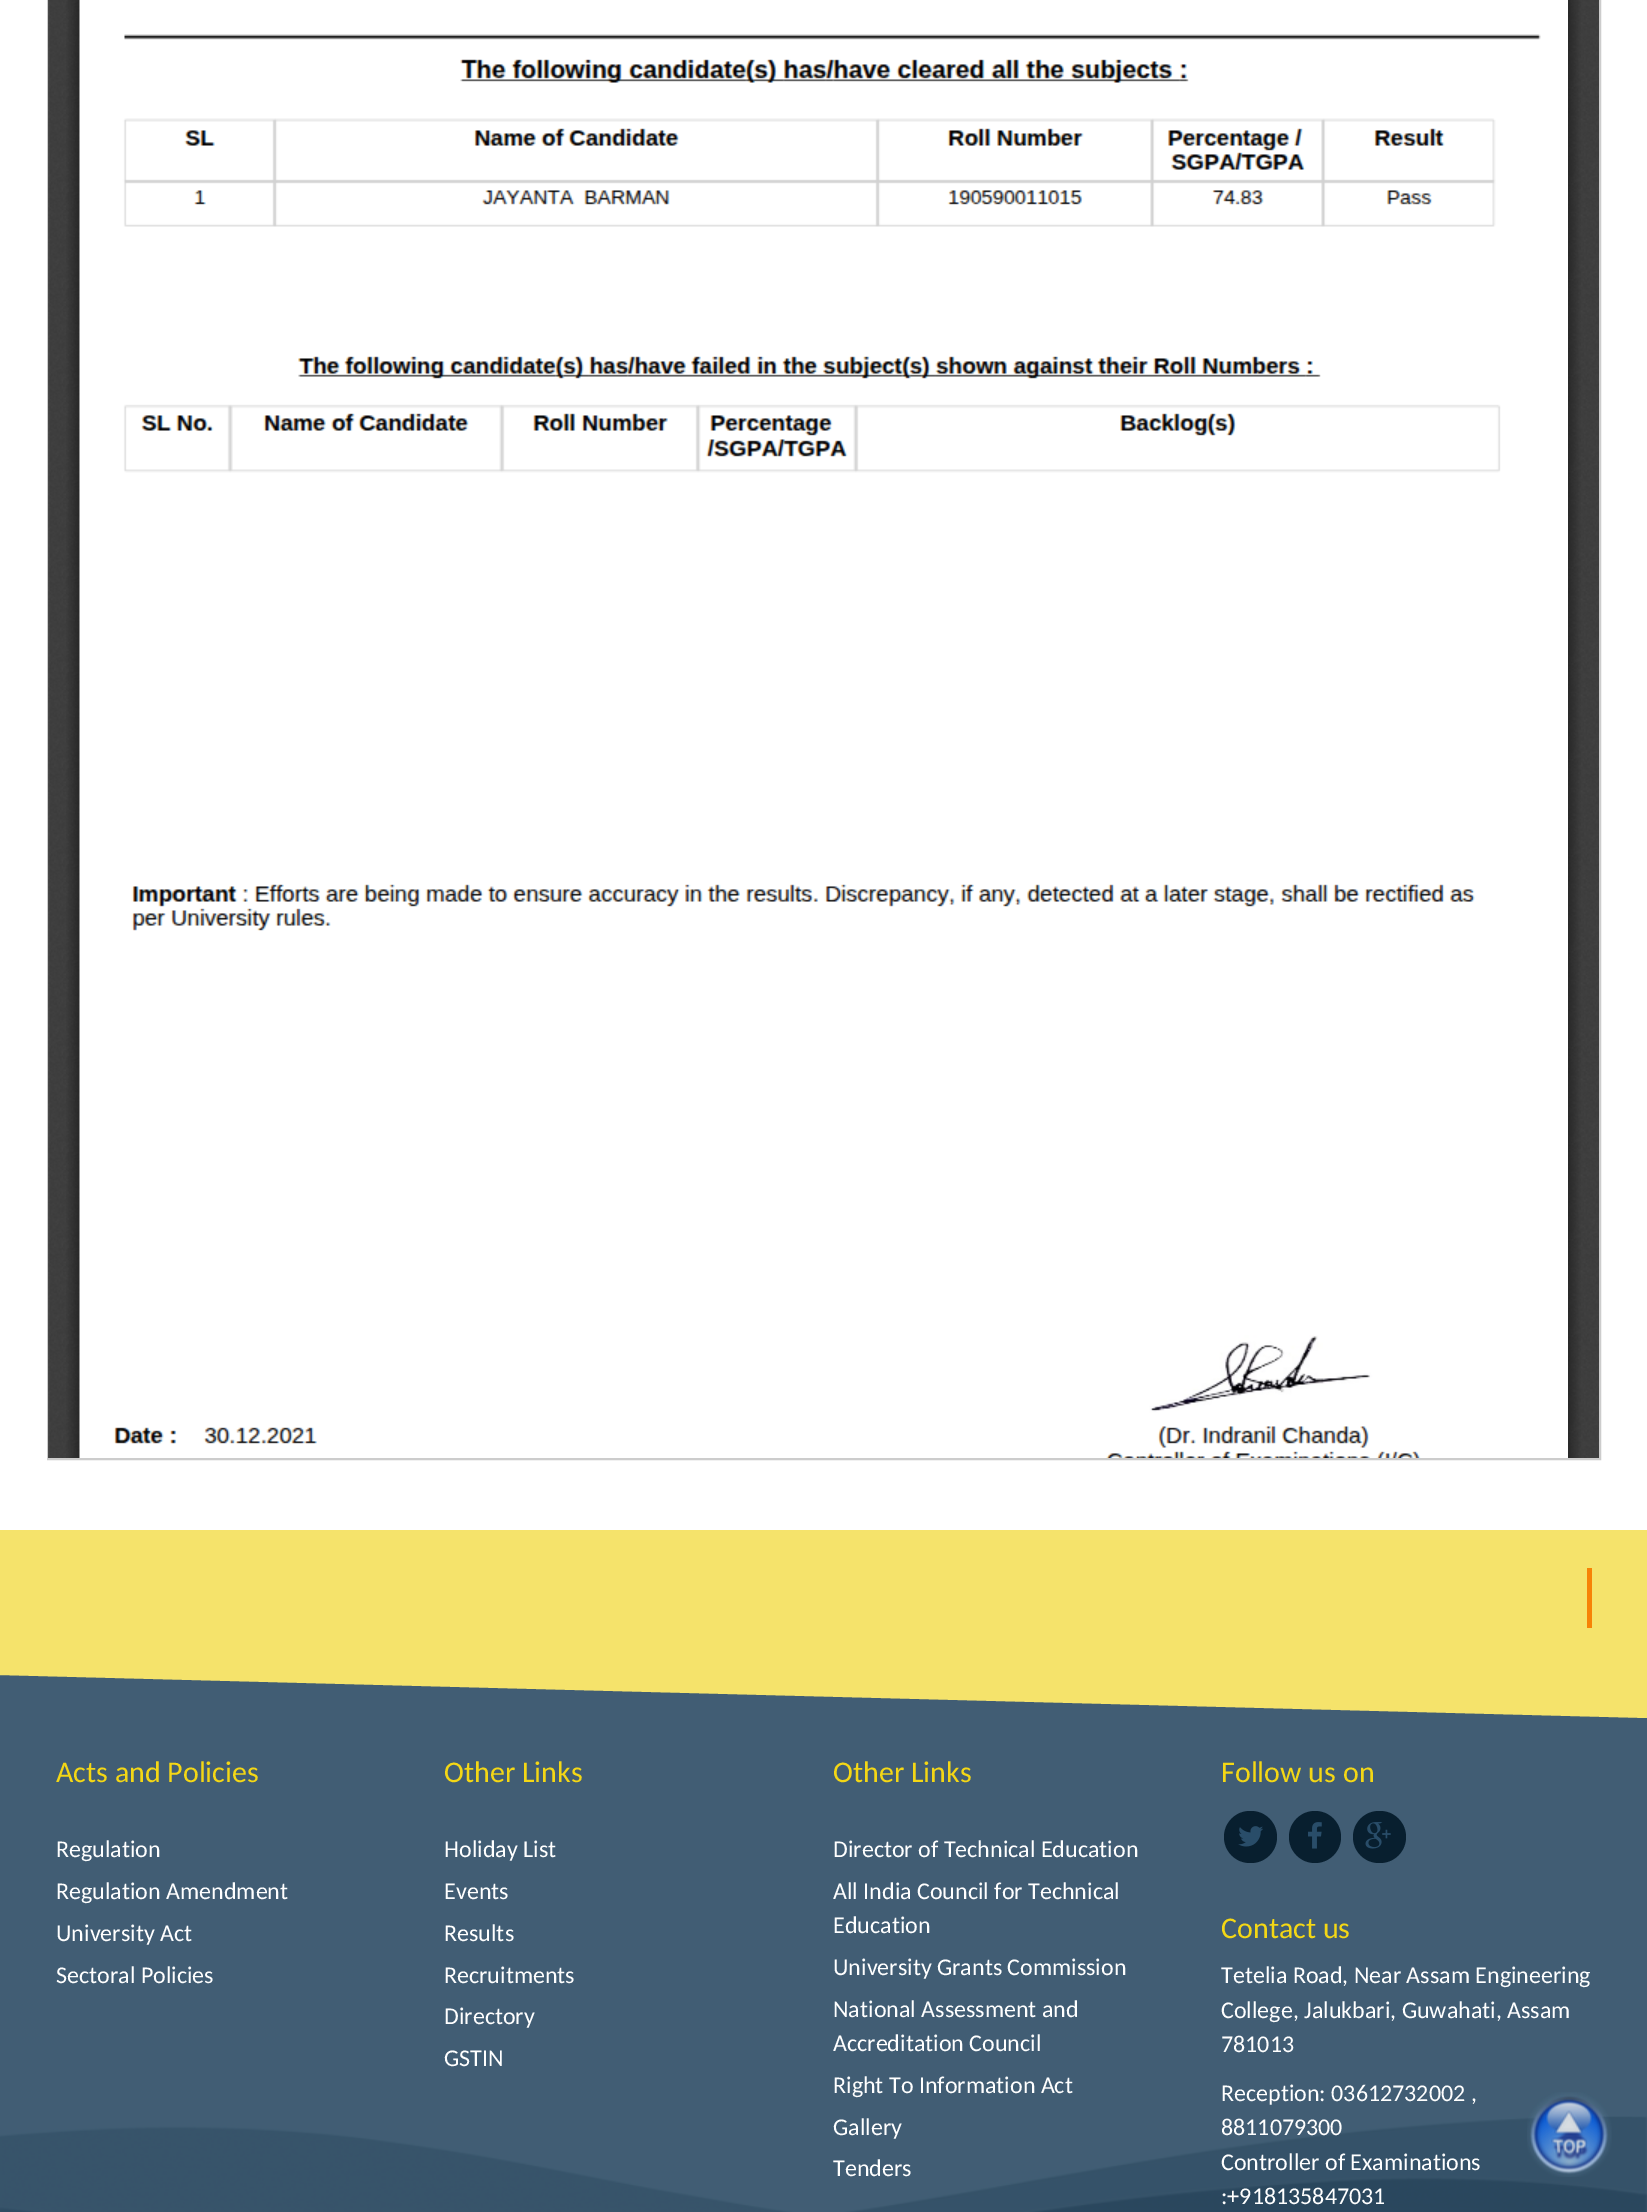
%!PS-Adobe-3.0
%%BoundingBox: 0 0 1647 2212
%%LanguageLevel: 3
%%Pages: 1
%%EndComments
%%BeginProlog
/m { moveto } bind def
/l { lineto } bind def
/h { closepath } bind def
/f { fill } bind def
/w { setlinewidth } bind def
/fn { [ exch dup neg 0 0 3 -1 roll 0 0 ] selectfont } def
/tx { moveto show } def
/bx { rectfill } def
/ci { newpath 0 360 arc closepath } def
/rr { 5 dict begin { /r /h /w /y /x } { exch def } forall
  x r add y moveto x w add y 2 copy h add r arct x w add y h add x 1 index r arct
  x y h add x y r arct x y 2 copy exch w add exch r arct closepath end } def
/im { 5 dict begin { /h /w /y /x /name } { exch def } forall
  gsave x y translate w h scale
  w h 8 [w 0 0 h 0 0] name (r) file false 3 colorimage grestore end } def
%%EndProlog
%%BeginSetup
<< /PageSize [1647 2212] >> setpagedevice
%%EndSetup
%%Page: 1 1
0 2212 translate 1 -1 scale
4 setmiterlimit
1 setgray
0 0 1647 2212 bx
0.255 0.365 0.455 setrgbcolor
0 1675 1647 537 bx
0.8 setgray
2 w
48 -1 1552 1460 rectstroke
(image0.raw) 48 0 1551 1458 im
0.961 0.89 0.42 setrgbcolor
0 1530 1647 120 bx
0 1607 m 1647 1650 l 1647 1718 l 0 1675 l h f
0.969 0.514 0.024 setrgbcolor
1587 1568 5 60 bx
/Carlito-Regular 30 fn
0.957 0.843 0.082 setrgbcolor
(Acts and Policies) 56 1782 tx
/Carlito-Regular 24 fn
1 setgray
(Regulation) 56 1857 tx
(Regulation Amendment) 56 1899 tx
(University Act) 56 1941 tx
(Sectoral Policies) 56 1983 tx
/Carlito-Regular 30 fn
0.957 0.843 0.082 setrgbcolor
(Other Links) 444 1782 tx
/Carlito-Regular 24 fn
1 setgray
(Holiday List) 444 1857 tx
(Events) 444 1899 tx
(Results) 444 1941 tx
(Recruitments) 444 1983 tx
(Directory) 444 2024 tx
(GSTIN) 444 2066 tx
/Carlito-Regular 30 fn
0.957 0.843 0.082 setrgbcolor
(Other Links) 833 1782 tx
/Carlito-Regular 24 fn
1 setgray
(Director of Technical Education) 833 1857 tx
(All India Council for Technical) 833 1899 tx
(Education) 833 1933 tx
(University Grants Commission) 833 1975 tx
(National Assessment and) 833 2017 tx
(Accreditation Council) 833 2051 tx
(Right To Information Act) 833 2093 tx
(image4.raw) 0 2116 1647 96 im
(Gallery) 833 2135 tx
(Tenders) 833 2176 tx
/Carlito-Regular 30 fn
0.957 0.843 0.082 setrgbcolor
(Follow us on) 1221 1782 tx
0.031 0.122 0.184 setrgbcolor
1224 1811 53 52 26 rr f
(image1.raw) 1238 1826 25 21 im
1315 1837 26 ci f
(image2.raw) 1308 1822 14 27 im
1353 1811 53 52 26 rr f
(image3.raw) 1365 1822 26 27 im
0.957 0.843 0.082 setrgbcolor
(Contact us) 1221 1938 tx
/Carlito-Regular 24 fn
1 setgray
(Tetelia Road, Near Assam Engineering) 1221 1983 tx
(College, Jalukbari, Guwahati, Assam) 1221 2018 tx
(781013) 1221 2052 tx
(Reception: 03612732002 ,) 1221 2101 tx
(8811079300) 1221 2135 tx
(Controller of Examinations) 1221 2170 tx
(:+918135847031) 1221 2204 tx
(image5.raw) 1527 2092 85 85 im
showpage
%%EOF
